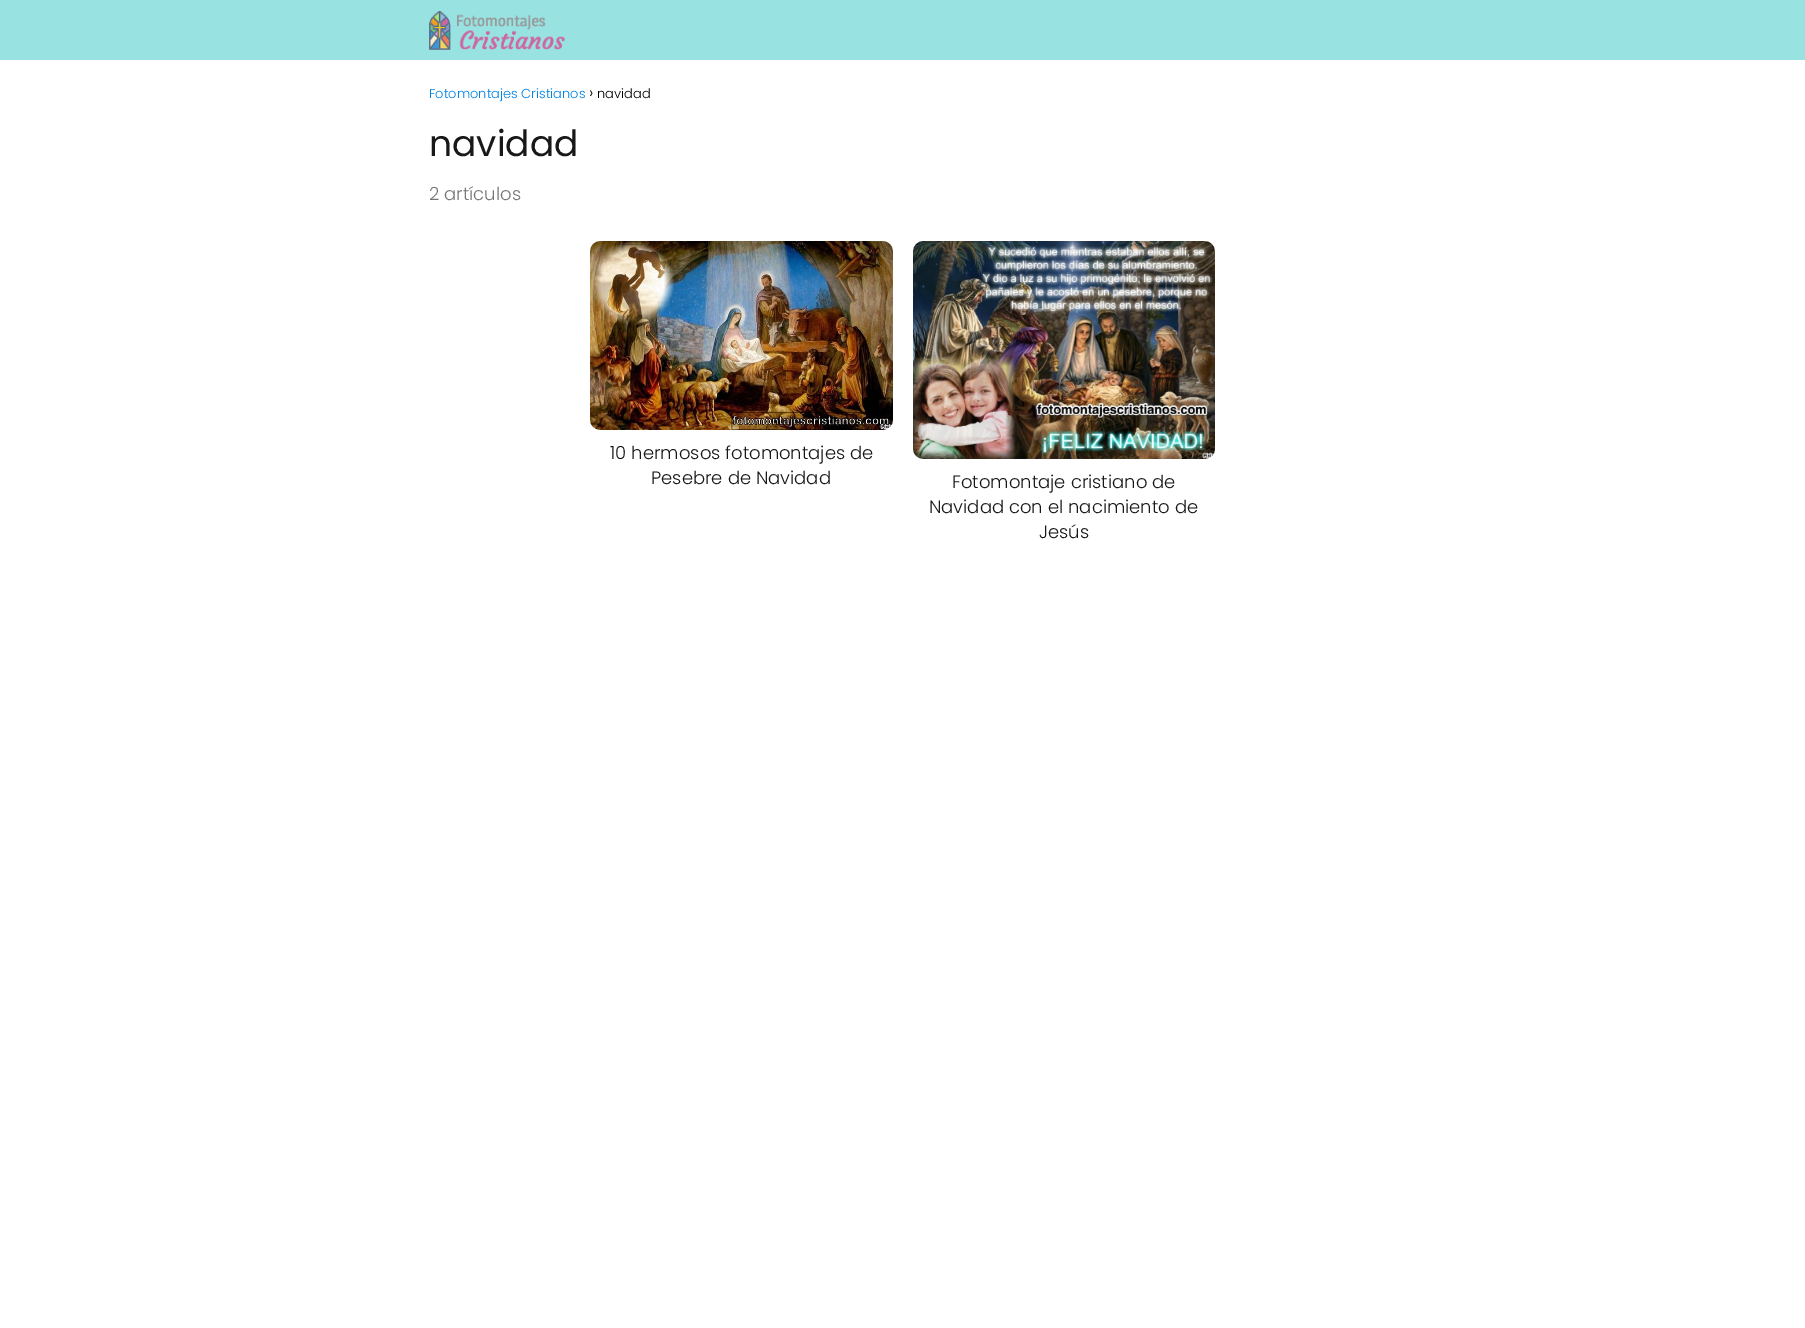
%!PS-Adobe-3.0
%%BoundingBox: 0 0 1805 1328
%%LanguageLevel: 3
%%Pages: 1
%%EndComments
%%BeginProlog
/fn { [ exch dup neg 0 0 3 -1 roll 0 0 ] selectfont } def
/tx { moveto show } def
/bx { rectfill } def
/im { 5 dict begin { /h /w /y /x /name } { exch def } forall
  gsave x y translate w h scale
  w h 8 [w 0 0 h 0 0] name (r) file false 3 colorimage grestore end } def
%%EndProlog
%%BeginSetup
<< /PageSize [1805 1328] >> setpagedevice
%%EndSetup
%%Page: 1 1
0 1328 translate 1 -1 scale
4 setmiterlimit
1 setgray
0 0 1805 1328 bx
0.596 0.886 0.886 setrgbcolor
0 0 1805 60 bx
(image0.raw) 429 11 136 39 im
/Poppins-Light 13 fn
0.004 0.514 0.894 setrgbcolor
(Fotomontajes Cristianos) 429 98 tx
/Poppins-Light 16 fn
0 setgray
(›) 589 98 tx
/Poppins-Light 13 fn
(navidad) 597 98 tx
/Poppins-Regular 36 fn
0.094 setgray
(navidad) 429 156 tx
/Poppins-Light 18 fn
0.463 setgray
(2 artículos) 429 200 tx
(image1.raw) 590 241 303 189 im
0.094 setgray
(10 hermosos fotomontajes de) 610 459 tx
(Pesebre de Navidad) 651 484 tx
(image2.raw) 913 241 302 218 im
(Fotomontaje cristiano de) 952 488 tx
(Navidad con el nacimiento de) 929 513 tx
(Jesús) 1039 538 tx
showpage
%%EOF
